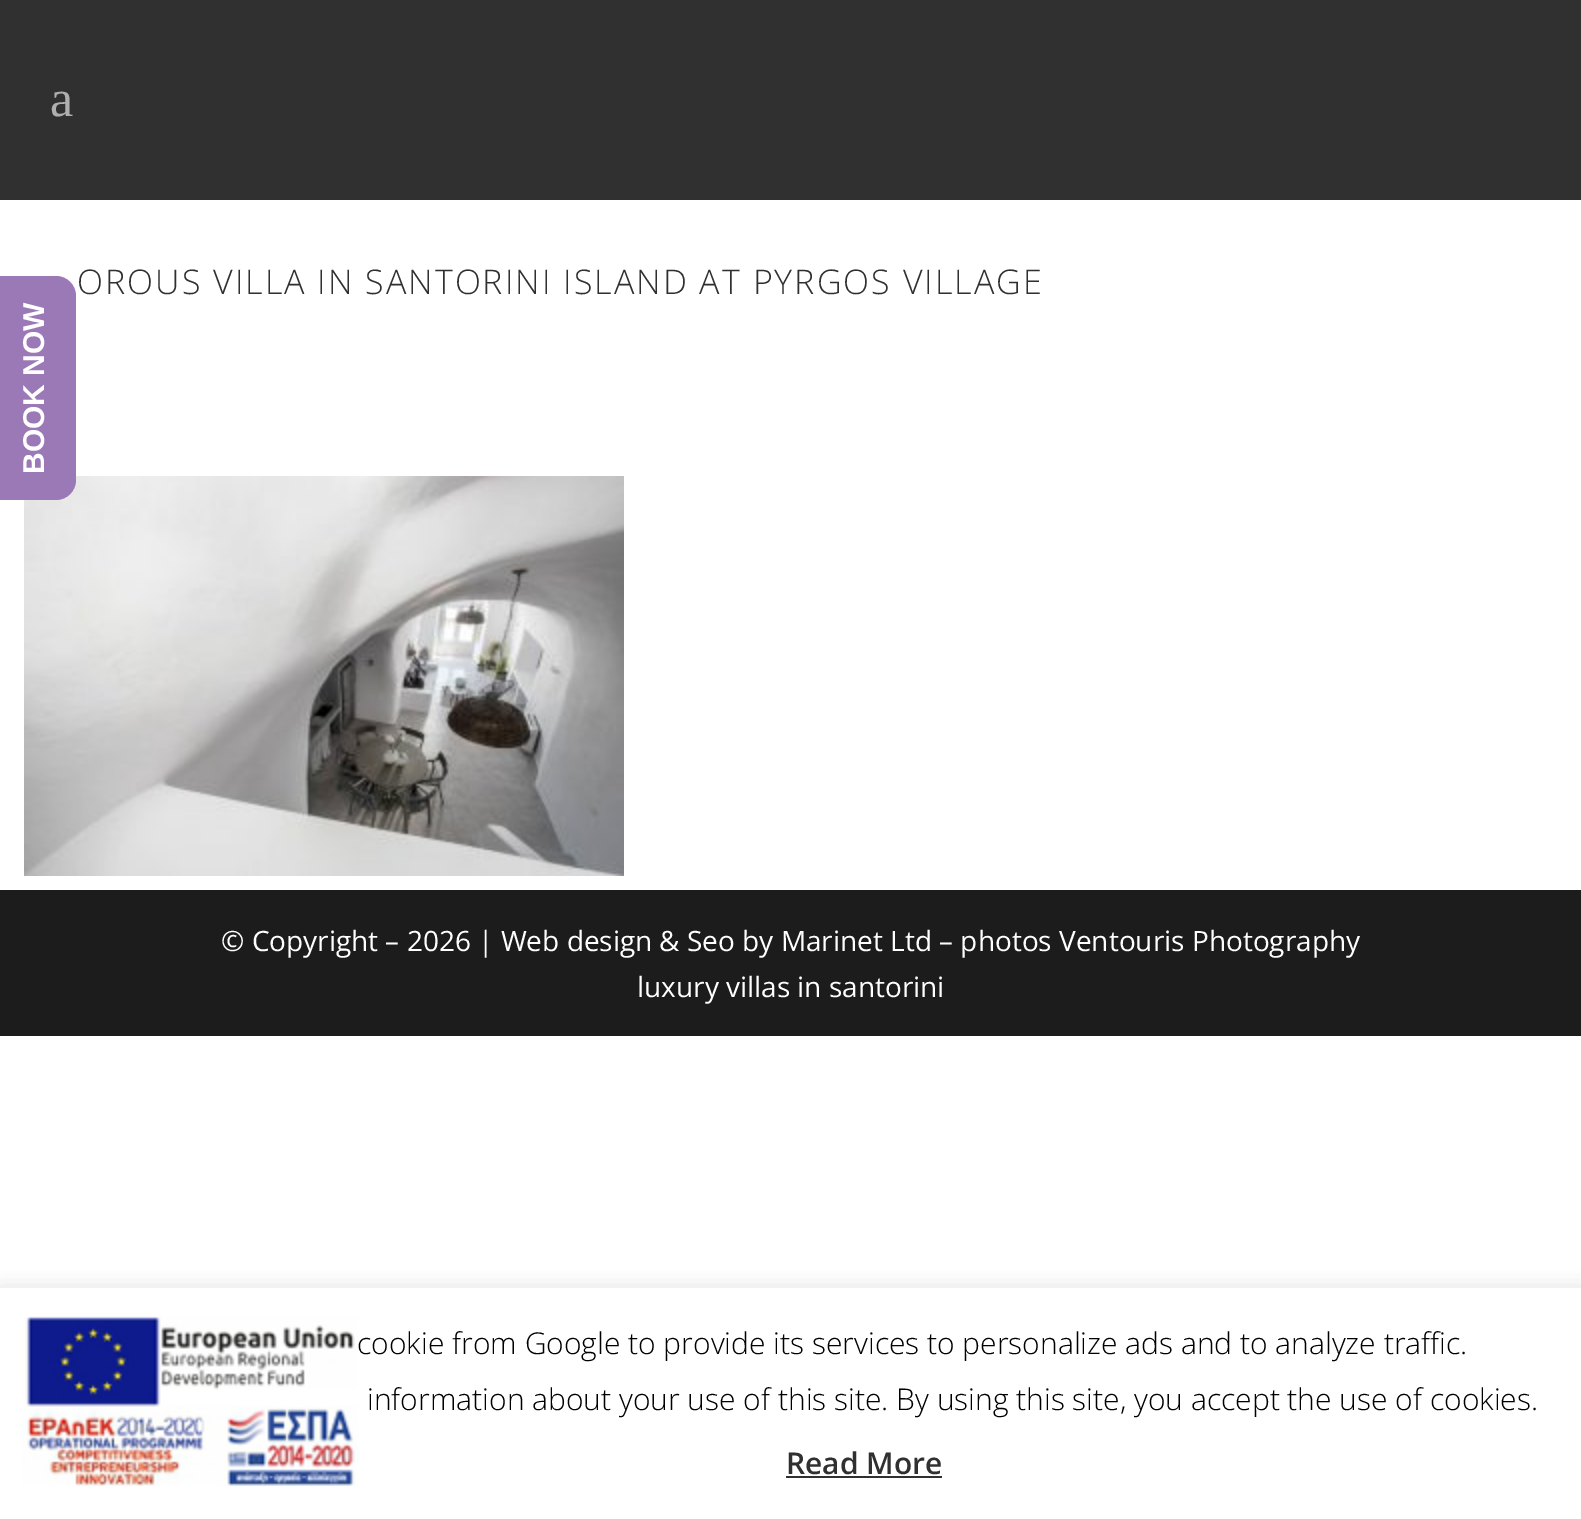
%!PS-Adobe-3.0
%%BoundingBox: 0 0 1581 1519
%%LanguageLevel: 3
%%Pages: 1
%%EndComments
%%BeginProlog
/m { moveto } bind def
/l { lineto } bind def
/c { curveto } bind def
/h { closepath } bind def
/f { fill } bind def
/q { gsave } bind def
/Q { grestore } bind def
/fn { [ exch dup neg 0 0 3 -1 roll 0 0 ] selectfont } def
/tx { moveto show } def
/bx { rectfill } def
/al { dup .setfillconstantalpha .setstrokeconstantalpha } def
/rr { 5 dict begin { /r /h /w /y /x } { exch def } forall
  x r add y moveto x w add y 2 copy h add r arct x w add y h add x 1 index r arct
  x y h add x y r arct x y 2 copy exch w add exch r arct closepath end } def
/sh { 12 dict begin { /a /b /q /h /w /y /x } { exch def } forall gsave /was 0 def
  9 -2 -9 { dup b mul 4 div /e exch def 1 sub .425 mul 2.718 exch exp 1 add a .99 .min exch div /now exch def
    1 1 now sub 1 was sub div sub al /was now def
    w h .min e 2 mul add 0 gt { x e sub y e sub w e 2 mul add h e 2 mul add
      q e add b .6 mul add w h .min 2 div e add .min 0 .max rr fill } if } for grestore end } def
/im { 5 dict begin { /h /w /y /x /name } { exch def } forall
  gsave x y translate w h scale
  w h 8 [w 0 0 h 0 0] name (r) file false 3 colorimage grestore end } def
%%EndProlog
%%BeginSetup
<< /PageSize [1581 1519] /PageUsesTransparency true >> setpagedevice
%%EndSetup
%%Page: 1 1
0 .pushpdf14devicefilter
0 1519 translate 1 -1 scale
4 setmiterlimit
1 setgray
0 0 1581 1519 bx
(image0.raw) 24 476 600 400 im
0.604 0.475 0.714 setrgbcolor
-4 500 m -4 276 l 56 276 l 67 276 76 285 76 296 c 76 480 l 76 491 67 500 56 500 c h f
/LiberationSans-Bold 30 fn
1 setgray
q 44 474 translate -90 rotate 0 0 m (BOOK NOW) show Q
0.188 setgray
0 0 1581 200 bx
/LiberationSerif-Regular 52 fn
0.686 setgray
(a) 50 116 tx
/OpenSans-Light 34 fn
0.188 setgray
77 294 m 2 0 (OROUS VILLA IN SANTORINI ISLAND AT PYRGOS VILLAGE) ashow
0.11 setgray
0 890 1581 146 bx
/OpenSans-Regular 28 fn
1 setgray
(© Copyright – 2026 | Web design & Seo by Marinet Ltd – photos Ventouris Photography) 221 951 tx
(luxury villas in santorini) 637 997 tx
q
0 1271 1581 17 rectclip
0.675 0.671 0.671 setrgbcolor
0 1286 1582 232 0 10 0.3 sh
Q
(image1.raw) 22 1316 336 170 im
/OpenSans-Light 30 fn
0 setgray
(cookie from Google to provide its services to personalize ads and to analyze traffic.) 357 1354 tx
(information about your use of this site. By using this site, you accept the use of cookies.) 367 1410 tx
/OpenSans-SemiBold 30 fn
0.188 setgray
(Read More) 786 1474 tx
786 1476 156 2 bx
.poppdf14devicefilter showpage
%%EOF
